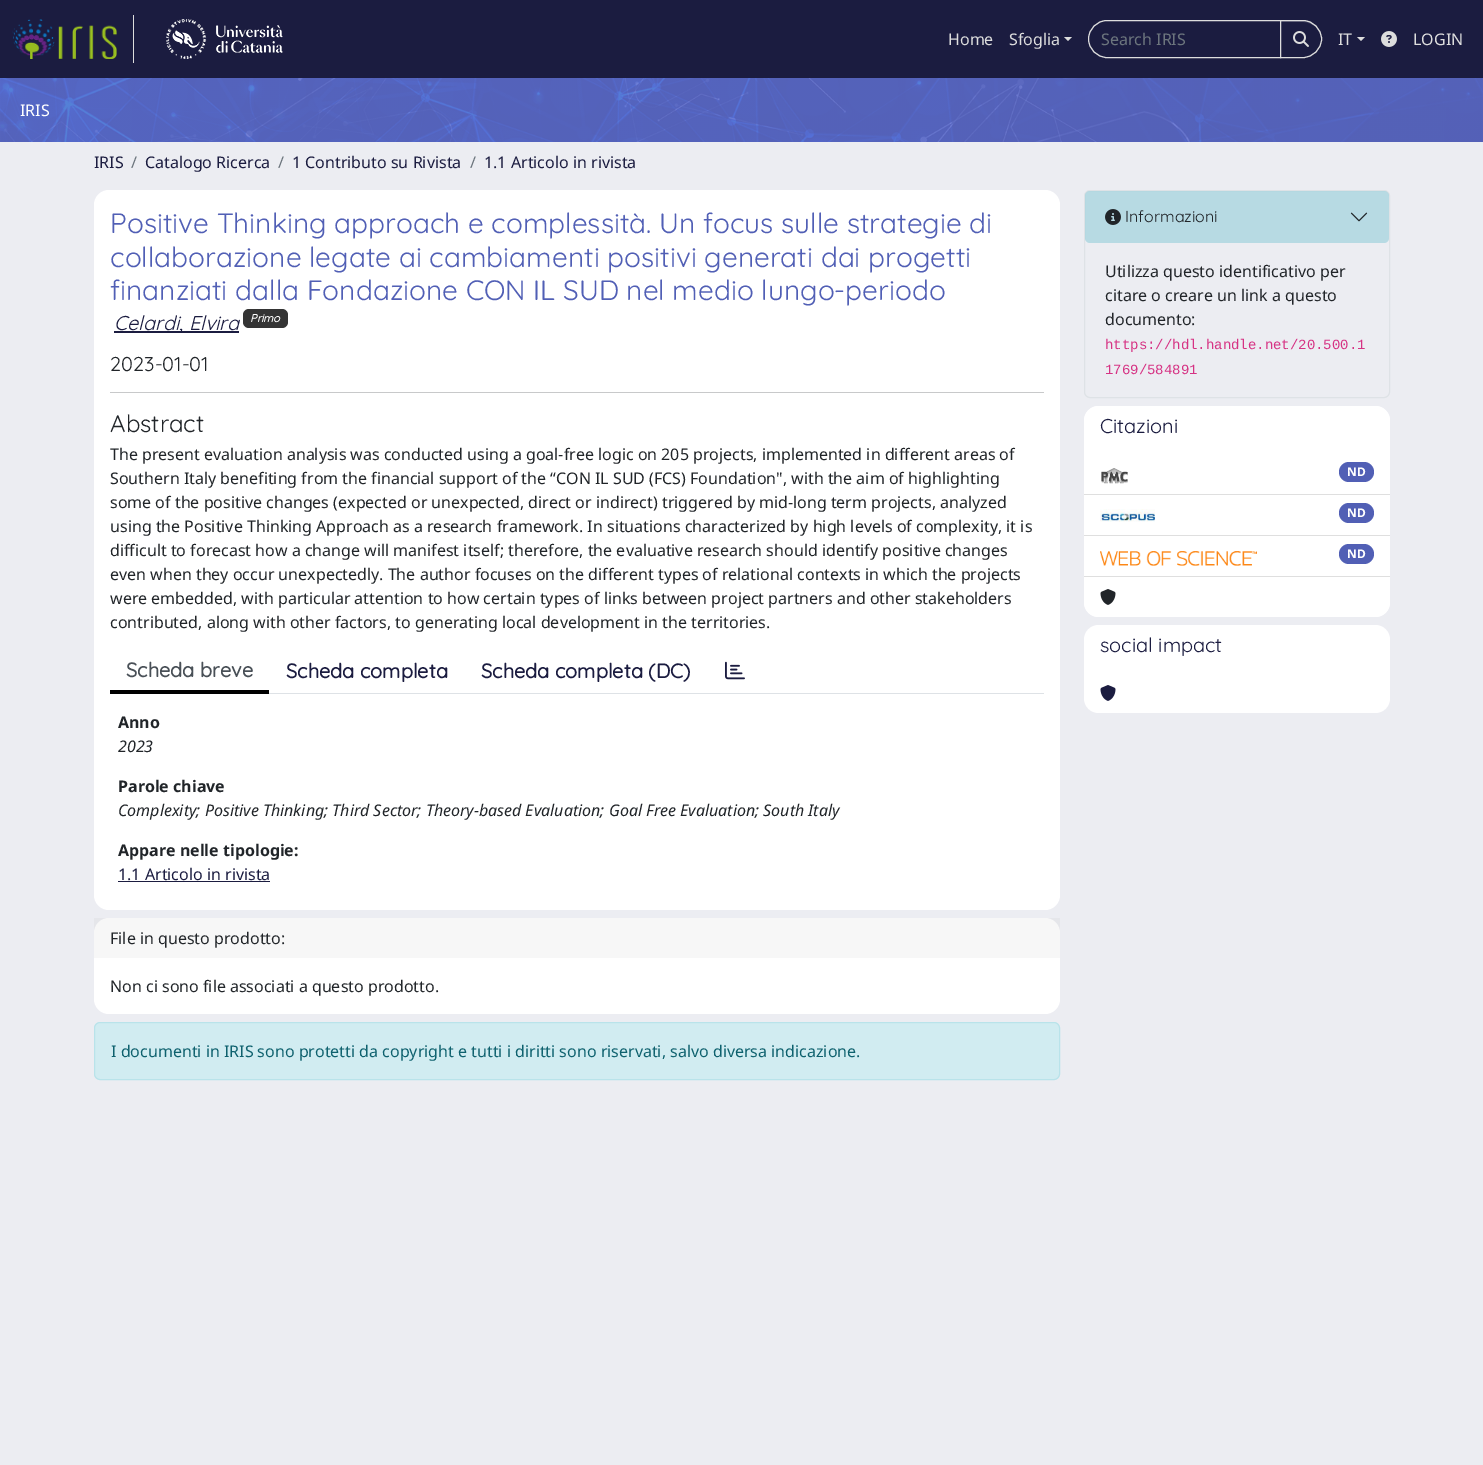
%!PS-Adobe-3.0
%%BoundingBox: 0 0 1483 1465
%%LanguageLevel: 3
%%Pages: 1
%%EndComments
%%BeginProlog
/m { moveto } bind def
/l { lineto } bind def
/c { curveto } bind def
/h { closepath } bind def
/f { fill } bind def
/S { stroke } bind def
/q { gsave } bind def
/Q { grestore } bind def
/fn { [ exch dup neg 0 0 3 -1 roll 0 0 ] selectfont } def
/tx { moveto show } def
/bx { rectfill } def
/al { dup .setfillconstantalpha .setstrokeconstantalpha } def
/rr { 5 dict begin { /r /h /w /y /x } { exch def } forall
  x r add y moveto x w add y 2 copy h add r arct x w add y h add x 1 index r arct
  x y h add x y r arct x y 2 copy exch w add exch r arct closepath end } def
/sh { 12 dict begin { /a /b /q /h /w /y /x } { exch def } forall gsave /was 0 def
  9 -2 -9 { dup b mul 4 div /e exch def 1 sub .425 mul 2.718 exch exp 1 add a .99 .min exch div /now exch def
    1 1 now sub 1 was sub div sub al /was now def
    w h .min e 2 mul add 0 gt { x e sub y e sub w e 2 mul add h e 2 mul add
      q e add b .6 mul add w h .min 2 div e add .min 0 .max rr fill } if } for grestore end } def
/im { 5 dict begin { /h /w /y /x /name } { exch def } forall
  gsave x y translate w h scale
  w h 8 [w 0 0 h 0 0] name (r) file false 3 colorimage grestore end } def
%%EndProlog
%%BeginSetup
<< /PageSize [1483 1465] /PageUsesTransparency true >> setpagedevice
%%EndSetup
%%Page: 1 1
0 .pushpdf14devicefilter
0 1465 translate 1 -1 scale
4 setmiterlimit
0.925 0.929 0.949 setrgbcolor
0 0 1483 1465 bx
0.106 0.11 0.251 setrgbcolor
0 0 1483 78 bx
0.867 setgray
133 15 1 48 bx
(image0.raw) 12 19 105 40 im
(image1.raw) 166 19 117 40 im
/NotoSans-Regular 16 fn
(Home) 948 45 tx
(Sfoglia) 1009 45 tx
1064 37 m 1072 37 l 1068 41 l h f
1107 20.5 m 1280.5 20.5 l 1280.5 57.5 l 1107 57.5 l 1097 57.5 1088.5 49 1088.5 39 c 1088.5 29 1097 20.5 1107 20.5 c h S
0.424 0.459 0.49 setrgbcolor
(Search IRIS) 1101 45 tx
0 setgray
1280 21 42 38 19 0.5 0.07 sh
0.106 0.11 0.251 setrgbcolor
1280 20 m 1303 20 l 1313.5 20 1322 28.5 1322 39 c 1322 49.5 1313.5 58 1303 58 c 1280 58 l h f
0.239 0.243 0.365 setrgbcolor
1281 22 m 1303 22 l 1313 22 1321 30 1321 39 c 1321 31 1315 23 1307 21 c 1281 21 l h f
0.867 setgray
1280.5 20.5 m 1303 20.5 l 1313 20.5 1321.5 29 1321.5 39 c 1321.5 49 1313 57.5 1303 57.5 c 1280.5 57.5 l h S
(image2.raw) 1293 31 16 16 im
(IT) 1338 45 tx
1357 37 m 1365 37 l 1361 41 l h f
(image3.raw) 1381 31 16 16 im
(LOGIN) 1413 45 tx
(image4.raw) 0 78 1483 64 im
1 setgray
(IRIS) 20 116 tx
0.106 0.11 0.251 setrgbcolor
(IRIS) 94 168 tx
0.424 0.459 0.49 setrgbcolor
(/) 131 168 tx
0.106 0.11 0.251 setrgbcolor
(Catalogo Ricerca) 145 168 tx
0.424 0.459 0.49 setrgbcolor
(/) 278 168 tx
0.106 0.11 0.251 setrgbcolor
(1 Contributo su Rivista) 292 168 tx
0.424 0.459 0.49 setrgbcolor
(/) 470 168 tx
0.106 0.11 0.251 setrgbcolor
(1.1 Articolo in rivista) 484 168 tx
1 setgray
94 190 966 720 15 rr f
/Quicksand-Regular 28 fn
0.318 0.373 0.71 setrgbcolor
(Positive Thinking approach e complessità. Un focus sulle strategie di) 110 233 tx
(collaborazione legate ai cambiamenti positivi generati dai progetti) 110 267 tx
(finanziati dalla Fondazione CON IL SUD nel medio lungo-periodo) 110 300 tx
0.106 0.11 0.251 setrgbcolor
114 331 125 2 bx
/Quicksand-Italic 20 fn
(Celardi, Elvira) 114 330 tx
0.204 setgray
243 309 45 19 6 rr f
/Quicksand-BoldItalic 11 fn
1 setgray
(Primo) 250 322 tx
/Quicksand-Regular 20 fn
0.129 0.145 0.161 setrgbcolor
(2023-01-01) 110 371 tx
0.784 0.788 0.792 setrgbcolor
110 392 934 1 bx
/Quicksand-Regular 24 fn
0.129 0.145 0.161 setrgbcolor
(Abstract) 110 432 tx
/NotoSans-Regular 16 fn
(The present evaluation analysis was conducted using a goal-free logic on 205 projects, implemented in different areas of) 110 460 tx
(Southern Italy benefiting from the financial support of the “CON IL SUD \(FCS\) Foundation", with the aim of highlighting) 110 484 tx
(some of the positive changes \(expected or unexpected, direct or indirect\) triggered by mid-long term projects, analyzed) 110 508 tx
(using the Positive Thinking Approach as a research framework. In situations characterized by high levels of complexity, it is) 110 532 tx
(difficult to forecast how a change will manifest itself; therefore, the evaluative research should identify positive changes) 110 556 tx
(even when they occur unexpectedly. The author focuses on the different types of relational contexts in which the projects) 110 580 tx
(were embedded, with particular attention to how certain types of links between project partners and other stakeholders) 110 604 tx
(contributed, along with other factors, to generating local development in the territories.) 110 628 tx
0.871 0.886 0.902 setrgbcolor
269 693 775 1 bx
0 setgray
110 690 159 4 bx
/Quicksand-Bold 20 fn
0.286 0.314 0.341 setrgbcolor
(Scheda breve) 126 677 tx
0.106 0.11 0.251 setrgbcolor
(Scheda completa) 286 678 tx
(Scheda completa \(DC\)) 481 678 tx
(image5.raw) 725 661 20 19 im
/NotoSans-Bold 16 fn
0.129 0.145 0.161 setrgbcolor
(Anno) 118 728 tx
/NotoSans-Italic 16 fn
(2023) 118 752 tx
/NotoSans-Bold 16 fn
(Parole chiave) 118 792 tx
/NotoSans-Italic 16 fn
(Complexity; Positive Thinking; Third Sector; Theory-based Evaluation; Goal Free Evaluation; South Italy) 118 816 tx
/NotoSans-Bold 16 fn
(Appare nelle tipologie:) 118 856 tx
/NotoSans-Regular 16 fn
0.106 0.11 0.251 setrgbcolor
(1.1 Articolo in rivista) 118 880 tx
118 881 152 1 bx
1 setgray
94 918 966 96 15 rr f
0.03 al
0 setgray
94 918 966 40 bx
1 al
0.129 0.145 0.161 setrgbcolor
(File in questo prodotto:) 110 944 tx
(Non ci sono file associati a questo prodotto.) 110 992 tx
0.82 0.925 0.945 setrgbcolor
94.5 1022.5 965 57 5.5 rr q f Q
0.725 0.89 0.918 setrgbcolor
S
0.055 0.38 0.431 setrgbcolor
(I documenti in IRIS sono protetti da copyright e tutti i diritti sono riservati, salvo diversa indicazione.) 111 1057 tx
0.871 0.886 0.902 setrgbcolor
1084.5 190.5 305 207 5.5 rr S
0.25 al
0.09 0.635 0.722 setrgbcolor
1085 191 304 52 5 rr f
1 al
(image6.raw) 1105 209 16 16 im
/Quicksand-Regular 16 fn
0.129 0.145 0.161 setrgbcolor
(Informazioni) 1125 222 tx
(image7.raw) 1350 212 18 10 im
/NotoSans-Regular 16 fn
(Utilizza questo identificativo per) 1105 277 tx
(citare o creare un link a questo) 1105 301 tx
(documento:) 1105 325 tx
/LiberationMono-Regular 14 fn
0.839 0.2 0.518 setrgbcolor
(https://hdl.handle.net/20.500.1) 1105 349 tx
(1769/584891) 1105 374 tx
1 setgray
1084 406 306 211 15 rr f
1099 406 m 1375 406 l 1383.5 406 1390 412.5 1390 421 c 1390 454 l 1084 454 l 1084 421 l 1084 412.5 1090.5 406 1099 406 c h f
/Quicksand-Regular 20 fn
0.106 0.11 0.251 setrgbcolor
(Citazioni) 1100 433 tx
0.875 setgray
1084 494 306 1 bx
(image8.raw) 1101 468 27 16 im
0.318 0.373 0.71 setrgbcolor
1339 462 35 20 10 rr f
/NotoSans-Bold 12 fn
1 setgray
(ND) 1347 476 tx
0.875 setgray
1084 535 306 1 bx
(image9.raw) 1100 509 55 13 im
0.318 0.373 0.71 setrgbcolor
1339 503 35 20 10 rr f
1 setgray
(ND) 1347 517 tx
0.875 setgray
1084 576 306 1 bx
(image10.raw) 1100 551 157 15 im
0.318 0.373 0.71 setrgbcolor
1339 544 35 20 10 rr f
1 setgray
(ND) 1347 558 tx
1084 577 m 1390 577 l 1390 602 l 1390 610.5 1383.5 617 1375 617 c 1099 617 l 1090.5 617 1084 610.5 1084 602 c h f
(image11.raw) 1100 589 16 16 im
1099 625 m 1375 625 l 1383.5 625 1390 631.5 1390 640 c 1390 673 l 1084 673 l 1084 640 l 1084 631.5 1090.5 625 1099 625 c h f
/Quicksand-Regular 20 fn
0.106 0.11 0.251 setrgbcolor
(social impact) 1100 652 tx
1 setgray
1084 673 m 1390 673 l 1390 698 l 1390 706.5 1383.5 713 1375 713 c 1099 713 l 1090.5 713 1084 706.5 1084 698 c h f
(image12.raw) 1100 685 16 16 im
.poppdf14devicefilter showpage
%%EOF
